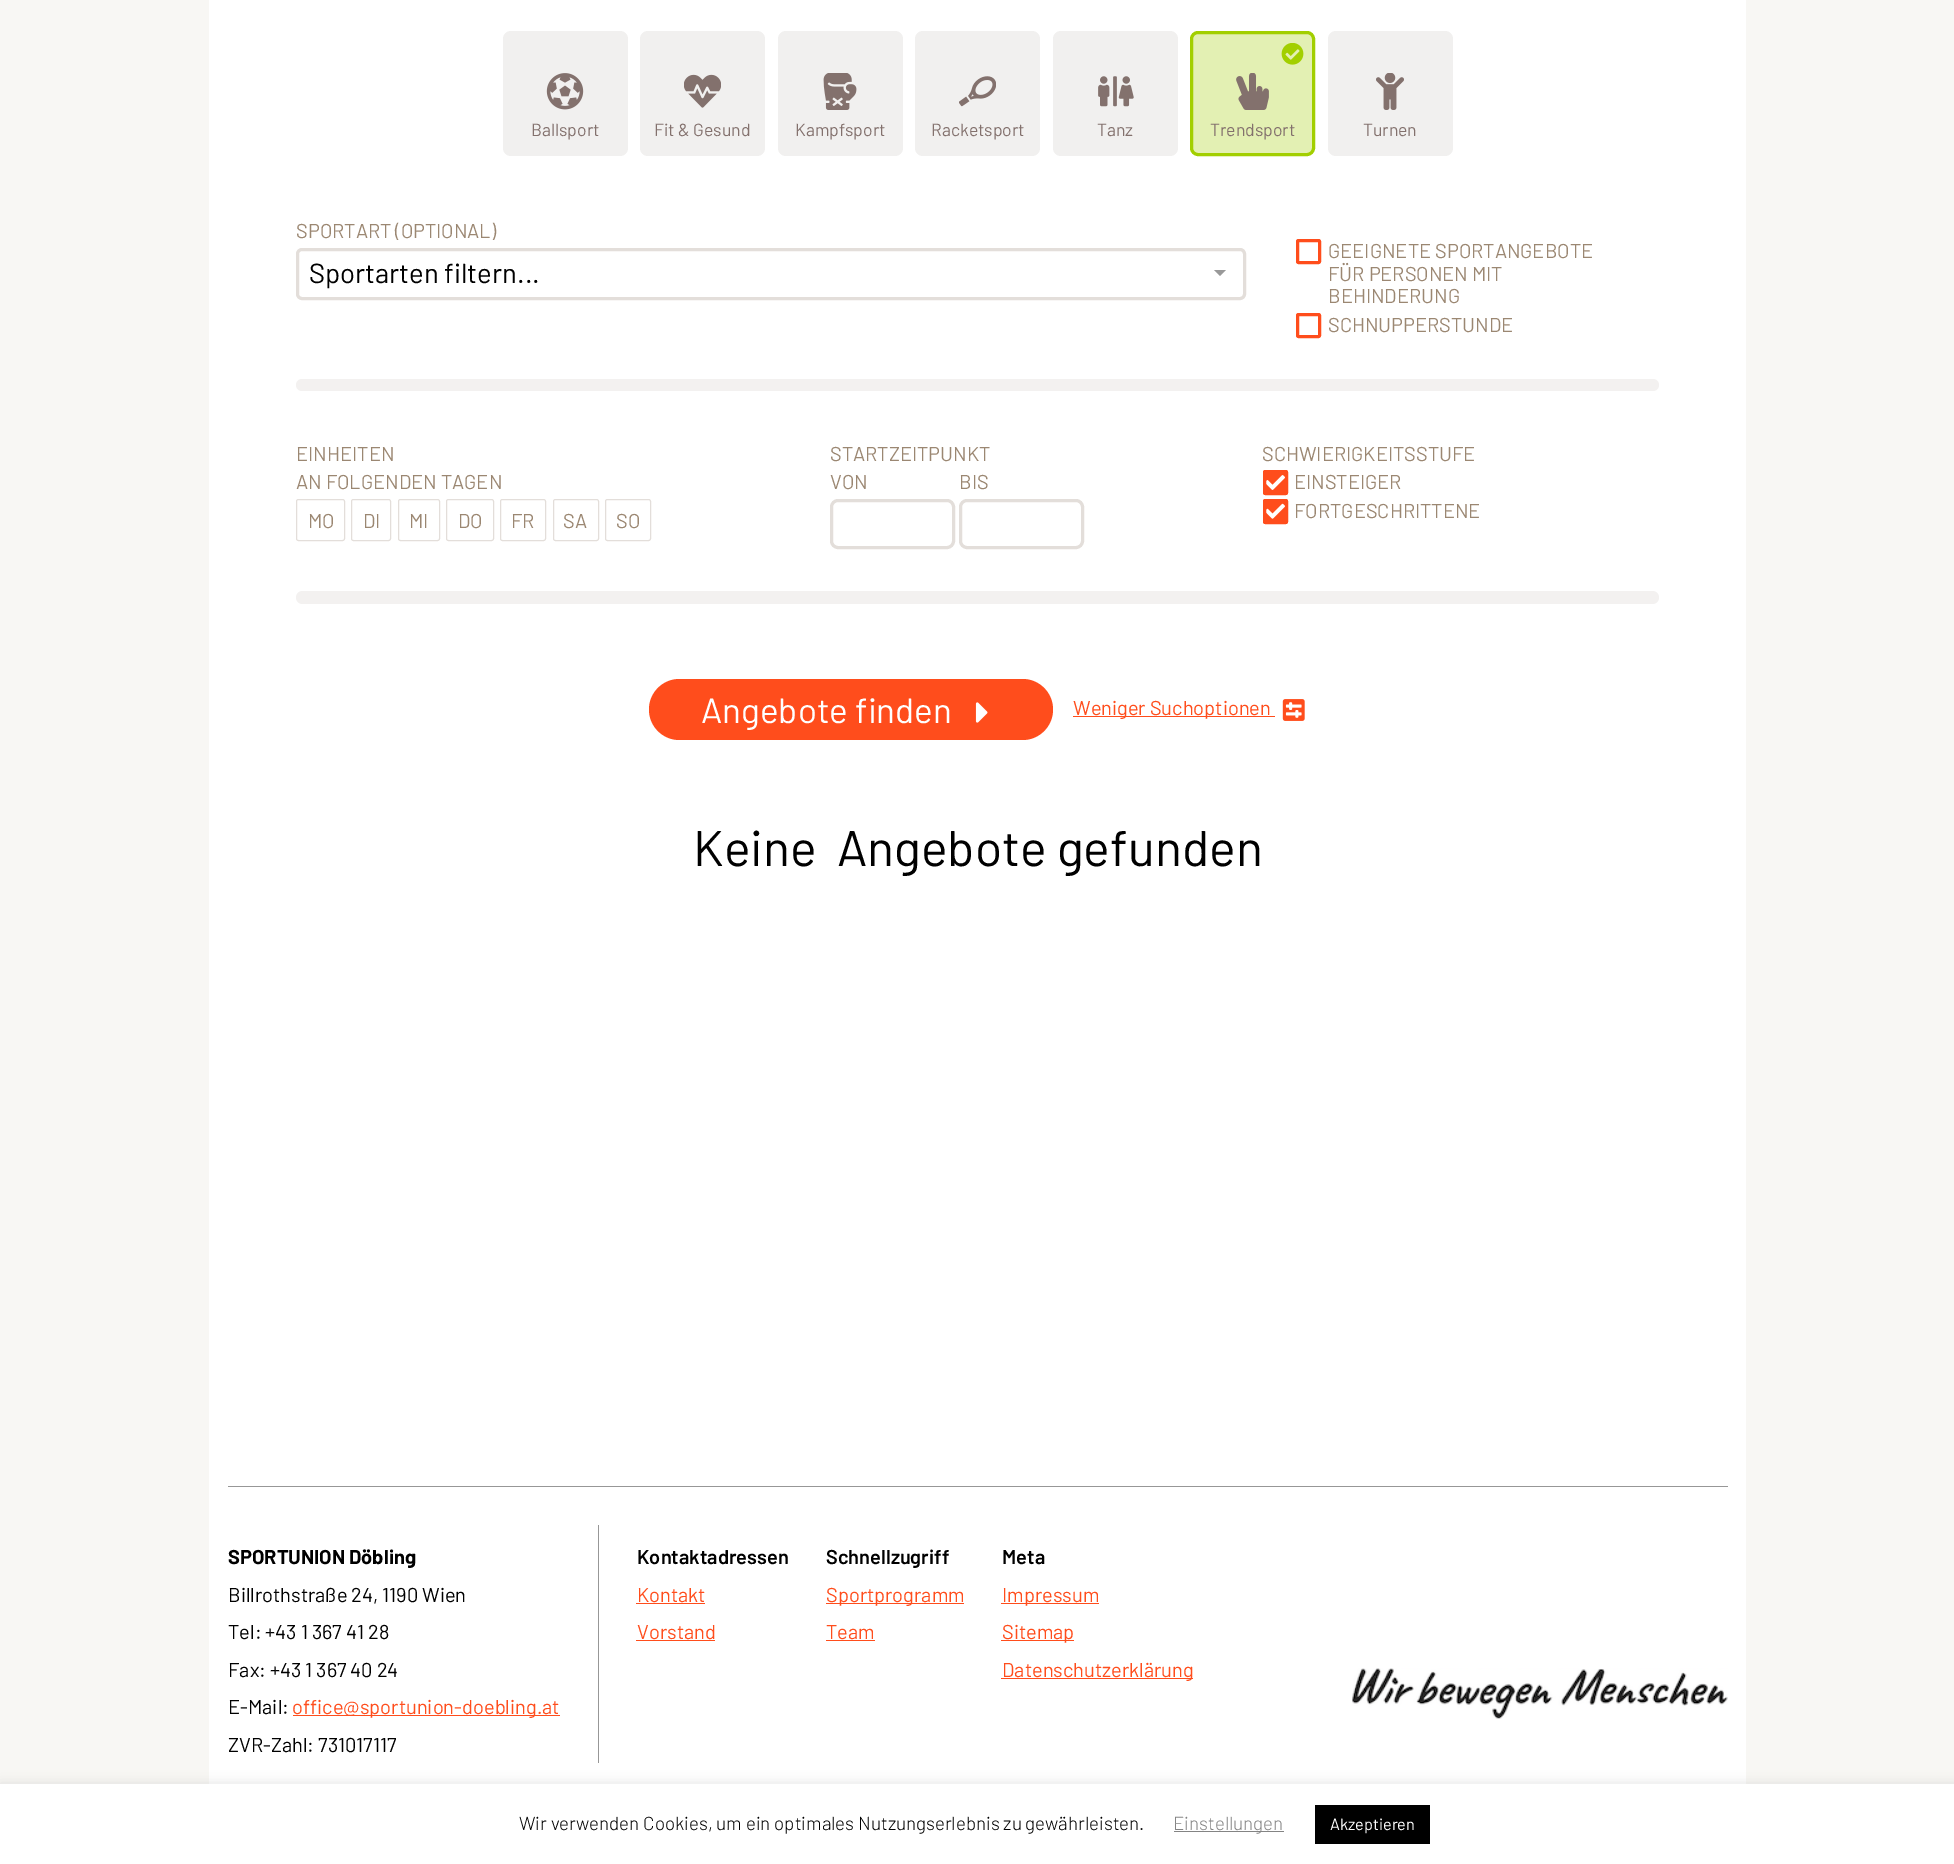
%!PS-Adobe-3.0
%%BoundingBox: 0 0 1954 1864
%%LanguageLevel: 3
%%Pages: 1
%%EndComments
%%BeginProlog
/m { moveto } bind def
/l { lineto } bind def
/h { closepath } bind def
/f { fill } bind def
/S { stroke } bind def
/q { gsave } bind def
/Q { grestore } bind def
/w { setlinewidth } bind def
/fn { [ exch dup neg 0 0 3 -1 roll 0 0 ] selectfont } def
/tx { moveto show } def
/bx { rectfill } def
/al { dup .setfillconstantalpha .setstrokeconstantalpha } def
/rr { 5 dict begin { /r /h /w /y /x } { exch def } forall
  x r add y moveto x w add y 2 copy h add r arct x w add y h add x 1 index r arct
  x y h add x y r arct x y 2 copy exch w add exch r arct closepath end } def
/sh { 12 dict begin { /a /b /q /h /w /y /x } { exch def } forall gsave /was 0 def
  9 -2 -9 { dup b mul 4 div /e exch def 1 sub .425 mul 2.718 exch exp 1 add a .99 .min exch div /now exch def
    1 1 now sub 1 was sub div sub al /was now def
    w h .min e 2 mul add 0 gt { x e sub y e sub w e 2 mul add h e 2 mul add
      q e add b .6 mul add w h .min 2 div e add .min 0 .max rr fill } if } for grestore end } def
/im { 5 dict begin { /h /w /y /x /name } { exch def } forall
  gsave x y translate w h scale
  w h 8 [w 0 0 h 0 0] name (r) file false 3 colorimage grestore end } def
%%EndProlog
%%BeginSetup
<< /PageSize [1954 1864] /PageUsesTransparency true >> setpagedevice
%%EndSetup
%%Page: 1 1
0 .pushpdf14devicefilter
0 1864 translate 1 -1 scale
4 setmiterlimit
0.973 0.969 0.957 setrgbcolor
0 0 1954 1864 bx
1 setgray
209 0 1537 1784 bx
0.945 0.941 0.937 setrgbcolor
503 31 125 125 8 rr f
(image0.raw) 546 73 38 37 im
/Barlow-Regular 17.5 fn
0.514 0.443 0.427 setrgbcolor
(Ballsport) 531 136 tx
0.945 0.941 0.937 setrgbcolor
640 31 125 125 8 rr f
(image1.raw) 684 74 37 34 im
0.514 0.443 0.427 setrgbcolor
(Fit & Gesund) 654 136 tx
0.945 0.941 0.937 setrgbcolor
778 31 125 125 8 rr f
(image2.raw) 823 73 34 37 im
0.514 0.443 0.427 setrgbcolor
(Kampfsport) 795 136 tx
0.945 0.941 0.937 setrgbcolor
915 31 125 125 8 rr f
(image3.raw) 959 76 37 31 im
0.514 0.443 0.427 setrgbcolor
(Racketsport) 931 136 tx
0.945 0.941 0.937 setrgbcolor
1053 31 125 125 8 rr f
(image4.raw) 1098 76 36 31 im
0.514 0.443 0.427 setrgbcolor
(Tanz) 1097 136 tx
0.89 0.941 0.702 setrgbcolor
1191.5 32.5 122 122 6.5 rr q f Q
0.635 0.812 0 setrgbcolor
3 w
S
(image5.raw) 1281 43 23 22 im
(image6.raw) 1236 73 33 37 im
0.514 0.443 0.427 setrgbcolor
(Trendsport) 1210 136 tx
0.945 0.941 0.937 setrgbcolor
1328 31 125 125 8 rr f
(image7.raw) 1376 73 28 37 im
0.514 0.443 0.427 setrgbcolor
(Turnen) 1363 136 tx
/Barlow-Regular 20 fn
0.608 0.529 0.447 setrgbcolor
(SPORTART \(OPTIONAL\)) 296 238 tx
0.89 0.871 0.855 setrgbcolor
297.5 249.5 947 49 4.5 rr S
/Barlow-Regular 27.5 fn
0 setgray
(Sportarten filtern...) 309 283 tx
0.6 setgray
1214 270 m 1226 270 l 1220 276 l h f
1 0.302 0.11 setrgbcolor
1297.5 240.5 22 22 1 rr S
/Barlow-Regular 20 fn
0.608 0.529 0.447 setrgbcolor
(GEEIGNETE SPORTANGEBOTE) 1328 258 tx
(FÜR PERSONEN MIT) 1328 281 tx
(BEHINDERUNG) 1328 303 tx
1 0.302 0.11 setrgbcolor
1297.5 314.5 22 22 1 rr S
0.608 0.529 0.447 setrgbcolor
(SCHNUPPERSTUNDE) 1328 332 tx
0.953 0.945 0.941 setrgbcolor
296 379 1363 12 6 rr f
0.608 0.529 0.447 setrgbcolor
(EINHEITEN) 296 461 tx
(AN FOLGENDEN TAGEN) 296 489 tx
0.89 0.871 0.855 setrgbcolor
1 w
296.5 499.5 48 41 2 rr S
0.608 0.529 0.447 setrgbcolor
(MO) 308 528 tx
0.89 0.871 0.855 setrgbcolor
351.5 499.5 39 41 2 rr S
0.608 0.529 0.447 setrgbcolor
(DI) 363 528 tx
0.89 0.871 0.855 setrgbcolor
398.5 499.5 41 41 2 rr S
0.608 0.529 0.447 setrgbcolor
(MI) 409 528 tx
0.89 0.871 0.855 setrgbcolor
446.5 499.5 47 41 2 rr S
0.608 0.529 0.447 setrgbcolor
(DO) 458 528 tx
0.89 0.871 0.855 setrgbcolor
500.5 499.5 45 41 2 rr S
0.608 0.529 0.447 setrgbcolor
(FR) 511 528 tx
0.89 0.871 0.855 setrgbcolor
553.5 499.5 45 41 2 rr S
0.608 0.529 0.447 setrgbcolor
(SA) 563 528 tx
0.89 0.871 0.855 setrgbcolor
605.5 499.5 45 41 2 rr S
0.608 0.529 0.447 setrgbcolor
(SO) 616 528 tx
(STARTZEITPUNKT) 830 461 tx
(VON) 830 489 tx
0.89 0.871 0.855 setrgbcolor
3 w
831.5 500.5 122 47 6.5 rr S
0.608 0.529 0.447 setrgbcolor
(BIS) 959 489 tx
0.89 0.871 0.855 setrgbcolor
960.5 500.5 122 47 6.5 rr S
0.608 0.529 0.447 setrgbcolor
(SCHWIERIGKEITSSTUFE) 1262 461 tx
1 0.302 0.11 setrgbcolor
1263 470 25 25 2.5 rr f
(image8.raw) 1266 475 19 15 im
1264.5 471.5 22 22 1 rr S
0.608 0.529 0.447 setrgbcolor
(EINSTEIGER) 1294 489 tx
1 0.302 0.11 setrgbcolor
1263 499 25 25 2.5 rr f
(image9.raw) 1266 503 19 16 im
1264.5 500.5 22 22 1 rr S
0.608 0.529 0.447 setrgbcolor
(FORTGESCHRITTENE) 1294 518 tx
0.953 0.945 0.941 setrgbcolor
296 591 1363 13 6.5 rr f
1 0.302 0.11 setrgbcolor
649 679 404 61 30.5 rr f
/Barlow-Regular 35 fn
1 setgray
(Angebote finden) 701 723 tx
(image10.raw) 975 702 13 21 im
1 0.302 0.11 setrgbcolor
1073 716 202 1 bx
/Barlow-Regular 20 fn
(Weniger Suchoptionen) 1073 715 tx
(image11.raw) 1282 699 23 22 im
/Barlow-Regular 50 fn
0 setgray
(Keine  Angebote gefunden) 693 866 tx
0.592 setgray
228 1486 1500 1 bx
598 1525 1 238 bx
/Barlow-Bold 20 fn
0 setgray
(SPORTUNION Döbling) 228 1564 tx
/Barlow-Regular 20 fn
(Billrothstraße 24, 1190 Wien) 228 1602 tx
(Tel: +43 1 367 41 28) 228 1639 tx
(Fax: +43 1 367 40 24) 228 1677 tx
(E-Mail:) 228 1714 tx
1 0.302 0.11 setrgbcolor
293 1715 267 1 bx
(office@sportunion-doebling.at) 292 1714 tx
0 setgray
(ZVR-Zahl: 731017117) 228 1752 tx
/Barlow-SemiBold 20 fn
(Kontaktadressen) 637 1564 tx
/Barlow-Regular 20 fn
1 0.302 0.11 setrgbcolor
(Kontakt) 637 1602 tx
636 1603 69 1 bx
(Vorstand) 637 1639 tx
636 1640 79 1 bx
/Barlow-SemiBold 20 fn
0 setgray
(Schnellzugriff) 826 1564 tx
1 0.302 0.11 setrgbcolor
826 1603 138 1 bx
/Barlow-Regular 20 fn
(Sportprogramm) 826 1602 tx
(Team) 826 1639 tx
826 1640 49 1 bx
/Barlow-SemiBold 20 fn
0 setgray
(Meta) 1002 1564 tx
1 0.302 0.11 setrgbcolor
1001 1603 98 1 bx
/Barlow-Regular 20 fn
(Impressum) 1002 1602 tx
1001 1640 73 1 bx
(Sitemap) 1002 1639 tx
1001 1678 192 1 bx
(Datenschutzerklärung) 1002 1677 tx
(image12.raw) 1352 1668 376 51 im
0.675 0.671 0.671 setrgbcolor
0 1783 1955 81 0 6 0.3 sh
1 setgray
0 1784 1954 80 bx
/Barlow-Light 18.75 fn
0 setgray
(Wir verwenden Cookies, um ein optimales Nutzungserlebnis zu gewährleisten.) 519 1830 tx
0.518 setgray
1174 1831 110 1 bx
(Einstellungen) 1173 1830 tx
0 setgray
1315 1805 115 39 bx
/Barlow-Regular 16.25 fn
1 setgray
(Akzeptieren) 1330 1830 tx
.poppdf14devicefilter showpage
%%EOF
